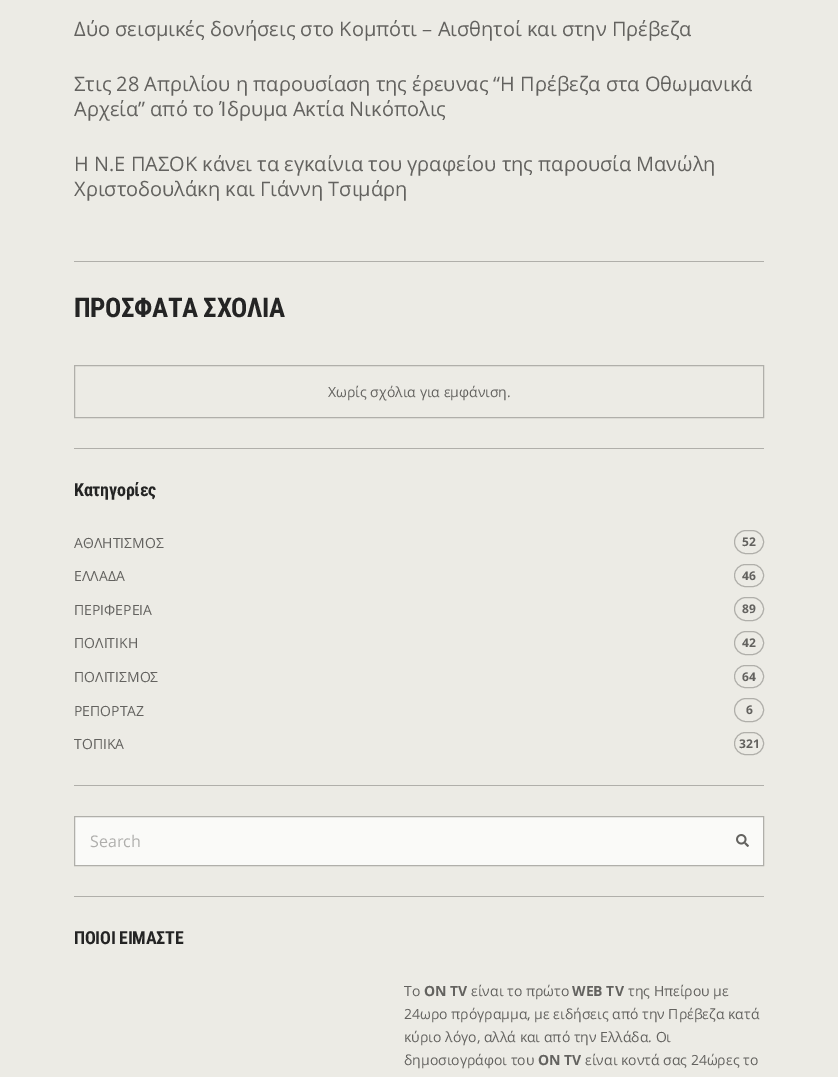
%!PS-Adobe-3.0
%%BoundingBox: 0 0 838 1077
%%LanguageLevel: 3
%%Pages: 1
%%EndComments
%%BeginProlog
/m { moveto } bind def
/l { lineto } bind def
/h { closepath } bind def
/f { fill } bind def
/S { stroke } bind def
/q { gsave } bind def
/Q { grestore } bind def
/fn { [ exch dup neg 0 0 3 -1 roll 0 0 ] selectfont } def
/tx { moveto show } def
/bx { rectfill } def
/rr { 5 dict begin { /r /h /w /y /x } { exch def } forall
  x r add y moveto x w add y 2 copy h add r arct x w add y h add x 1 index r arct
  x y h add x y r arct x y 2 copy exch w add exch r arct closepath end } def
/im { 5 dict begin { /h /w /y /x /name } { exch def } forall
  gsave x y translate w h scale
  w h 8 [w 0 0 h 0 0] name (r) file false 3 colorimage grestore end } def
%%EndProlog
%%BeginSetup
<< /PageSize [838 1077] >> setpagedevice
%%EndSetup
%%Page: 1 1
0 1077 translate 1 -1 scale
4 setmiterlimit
0.925 0.922 0.898 setrgbcolor
0 0 838 1077 bx
0.69 0.686 0.667 setrgbcolor
74 261 690 1 bx
/OpenSans-Regular 20 fn
0.388 0.384 0.373 setrgbcolor
(Δύο σεισμικές δονήσεις στο Κομπότι – Αισθητοί και στην Πρέβεζα) 74 36 tx
(Στις 28 Απριλίου η παρουσίαση της έρευνας “Η Πρέβεζα στα Οθωμανικά) 74 91 tx
(Αρχεία” από το Ίδρυμα Ακτία Νικόπολις) 74 116 tx
(Η Ν.Ε ΠΑΣΟΚ κάνει τα εγκαίνια του γραφείου της παρουσία Μανώλη) 74 171 tx
(Χριστοδουλάκη και Γιάννη Τσιμάρη) 74 196 tx
0.69 0.686 0.667 setrgbcolor
74 448 690 1 bx
/RobotoCondensed-Bold 27 fn
0.141 setgray
74 317 m -0.4 0 (ΠΡΟΣΦΑΤΑ ΣΧΟΛΙΑ) ashow
0.69 0.686 0.667 setrgbcolor
74.5 365.5 689 52 rectstroke
/OpenSans-Regular 14 fn
0.388 0.384 0.373 setrgbcolor
(Χωρίς σχόλια για εμφάνιση.) 328 397 tx
0.69 0.686 0.667 setrgbcolor
74 785 690 1 bx
/RobotoCondensed-Bold 18 fn
0.141 setgray
74 496 m -0.25 0 (Kατηγορίες) ashow
/OpenSans-Regular 14 fn
0.388 0.384 0.373 setrgbcolor
(ΑΘΛΗΤΙΣΜΟΣ) 74 548 tx
0.69 0.686 0.667 setrgbcolor
734.5 530.5 29 23 11.5 rr S
/OpenSans-Bold 12 fn
0.388 0.384 0.373 setrgbcolor
(52) 742 546 tx
/OpenSans-Regular 14 fn
(ΕΛΛΑΔΑ) 74 581 tx
0.69 0.686 0.667 setrgbcolor
734.5 564.5 29 22 11 rr S
/OpenSans-Bold 12 fn
0.388 0.384 0.373 setrgbcolor
(46) 742 580 tx
/OpenSans-Regular 14 fn
(ΠΕΡΙΦΕΡΕΙΑ) 74 615 tx
0.69 0.686 0.667 setrgbcolor
734.5 597.5 29 23 11.5 rr S
/OpenSans-Bold 12 fn
0.388 0.384 0.373 setrgbcolor
(89) 742 613 tx
/OpenSans-Regular 14 fn
(ΠΟΛΙΤΙΚΗ) 74 648 tx
0.69 0.686 0.667 setrgbcolor
734.5 631.5 29 23 11.5 rr S
/OpenSans-Bold 12 fn
0.388 0.384 0.373 setrgbcolor
(42) 742 647 tx
/OpenSans-Regular 14 fn
(ΠΟΛΙΤΙΣΜΟΣ) 74 682 tx
0.69 0.686 0.667 setrgbcolor
734.5 665.5 29 22 11 rr S
/OpenSans-Bold 12 fn
0.388 0.384 0.373 setrgbcolor
(64) 742 681 tx
/OpenSans-Regular 14 fn
(ΡΕΠΟΡΤΑΖ) 74 716 tx
0.69 0.686 0.667 setrgbcolor
734.5 698.5 29 23 11.5 rr S
/OpenSans-Bold 12 fn
0.388 0.384 0.373 setrgbcolor
(6) 746 714 tx
/OpenSans-Regular 14 fn
(ΤΟΠΙΚΑ) 74 749 tx
0.69 0.686 0.667 setrgbcolor
734.5 732.5 29 22 11 rr S
/OpenSans-Bold 12 fn
0.388 0.384 0.373 setrgbcolor
(321) 739 748 tx
0.69 0.686 0.667 setrgbcolor
74 896 690 1 bx
0.98 0.98 0.973 setrgbcolor
74.5 816.5 m 763.5 816.5 l 763.5 865.5 l 74.5 865.5 l h q f Q
0.69 0.686 0.667 setrgbcolor
S
/OpenSans-Regular 16 fn
0.686 0.682 0.675 setrgbcolor
(Search) 90 847 tx
(image0.raw) 736 834 13 13 im
/RobotoCondensed-Bold 18 fn
0.141 setgray
74 944 m -0.25 0 (ΠΟΙΟΙ ΕΙΜΑΣΤΕ) ashow
/OpenSans-Regular 14 fn
0.388 0.384 0.373 setrgbcolor
(Το) 404 996 tx
/OpenSans-Bold 14 fn
(ON TV) 424 996 tx
/OpenSans-Regular 14 fn
(είναι το πρώτο) 471 996 tx
/OpenSans-Bold 14 fn
(WEB TV) 572 996 tx
/OpenSans-Regular 14 fn
(της Ηπείρου με) 628 996 tx
(24ωρο πρόγραμμα, με ειδήσεις από την Πρέβεζα κατά) 404 1019 tx
(κύριο λόγο, αλλά και από την Ελλάδα. Οι) 404 1042 tx
(δημοσιογράφοι του) 404 1065 tx
/OpenSans-Bold 14 fn
(ON TV) 538 1065 tx
/OpenSans-Regular 14 fn
(είναι κοντά σας 24ώρες το) 585 1065 tx
showpage
%%EOF
